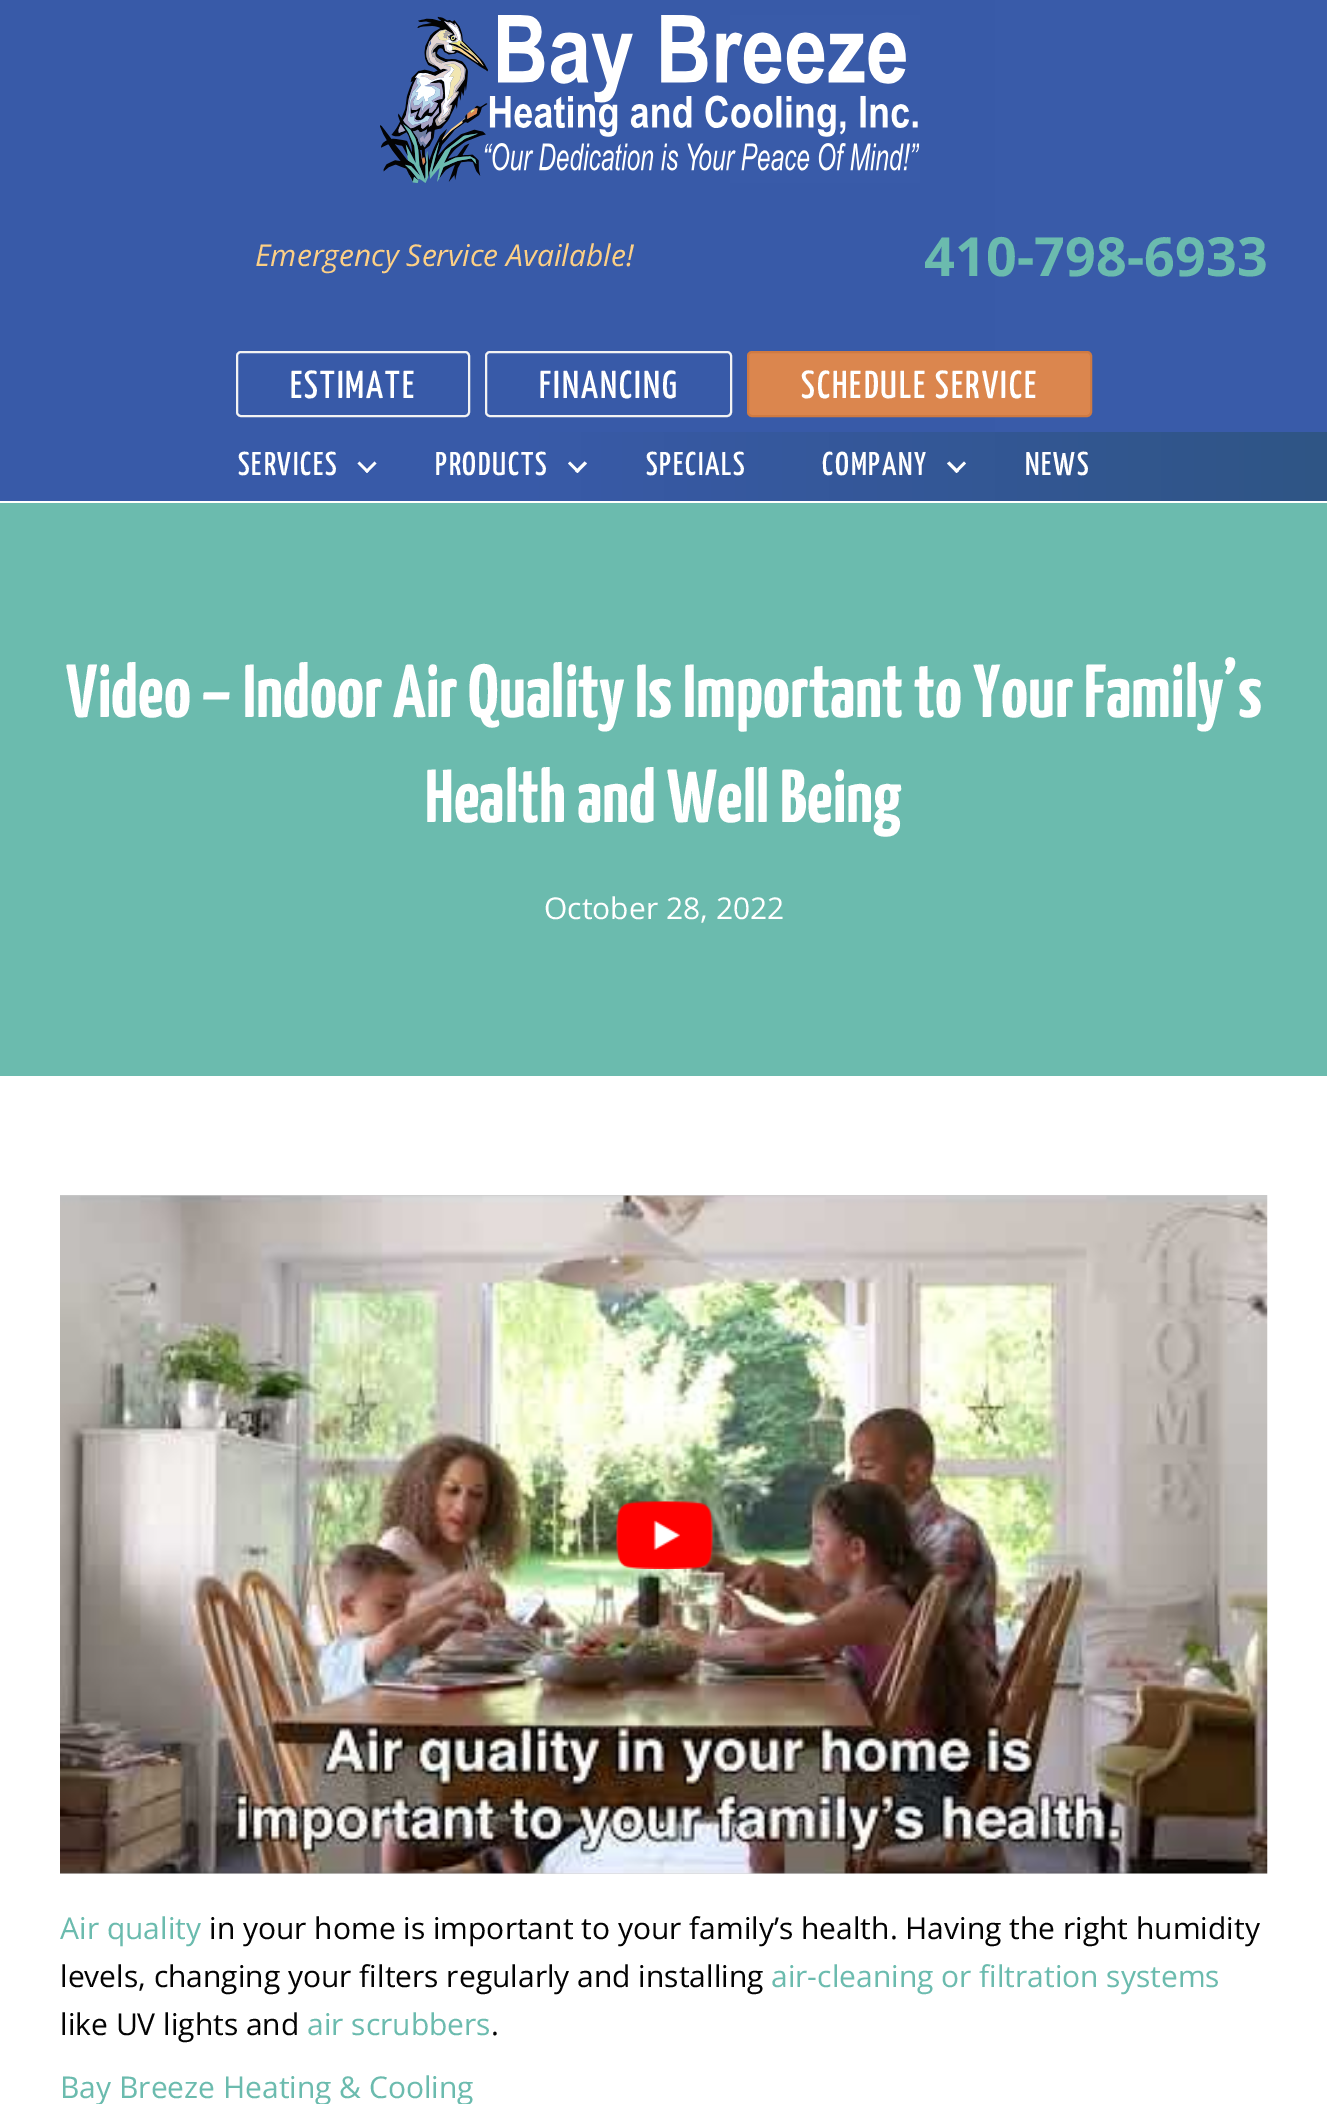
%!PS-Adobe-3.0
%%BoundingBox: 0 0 1327 2104
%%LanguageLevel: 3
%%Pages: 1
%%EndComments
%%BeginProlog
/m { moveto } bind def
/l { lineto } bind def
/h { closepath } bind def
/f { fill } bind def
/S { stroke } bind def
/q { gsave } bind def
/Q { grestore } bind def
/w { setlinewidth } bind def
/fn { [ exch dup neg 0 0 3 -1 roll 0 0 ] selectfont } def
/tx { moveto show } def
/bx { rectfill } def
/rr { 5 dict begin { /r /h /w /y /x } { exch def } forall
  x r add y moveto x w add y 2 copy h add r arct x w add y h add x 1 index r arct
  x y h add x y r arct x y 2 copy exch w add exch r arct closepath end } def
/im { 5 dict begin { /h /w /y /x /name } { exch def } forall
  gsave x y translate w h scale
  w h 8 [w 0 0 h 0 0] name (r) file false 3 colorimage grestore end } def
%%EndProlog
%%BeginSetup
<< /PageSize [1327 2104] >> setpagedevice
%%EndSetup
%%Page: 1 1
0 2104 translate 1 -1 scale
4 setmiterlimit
1 setgray
0 0 1327 2104 bx
q 0 0 m 1327 0 l 1327 432 l 0 432 l h clip newpath
<< /ShadingType 2 /ColorSpace /DeviceRGB /Coords [0 216 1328 216] /Extend [true true] /Function << /FunctionType 3 /Domain [0 1] /Functions [<< /FunctionType 2 /Domain [0 1] /C0 [0.22 0.353 0.659] /C1 [0.22 0.353 0.659] /N 1 >> << /FunctionType 2 /Domain [0 1] /C0 [0.22 0.353 0.659] /C1 [0.227 0.361 0.667] /N 1 >>] /Bounds [0.4] /Encode [0 1 0 1] >> >> shfill Q
(image0.raw) 380 15 540 168 im
/OpenSans-Italic 30 fn
0.992 0.816 0.525 setrgbcolor
(Emergency Service Available!) 255 266 tx
/OpenSans-Bold 54 fn
0.42 0.733 0.682 setrgbcolor
(410-798-6933) 924 276 tx
0.953 setgray
2 w
237 352 232 64 4 rr S
/YanoneKaffeesatz-Medium 39 fn
1 setgray
290 398 m 2 0 (ESTIMATE) ashow
0.953 setgray
486 352 245 64 4 rr S
1 setgray
539 398 m 2 0 (FINANCING) ashow
0.859 0.525 0.306 setrgbcolor
748 352 343 64 4 rr q f Q
0.812 0.478 0.259 setrgbcolor
S
1 setgray
801 398 m 2 0 (SCHEDULE SERVICE) ashow
q 0 432 m 1327 432 l 1327 501 l 0 501 l h clip newpath
<< /ShadingType 2 /ColorSpace /DeviceRGB /Coords [0 467 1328 467] /Extend [true true] /Function << /FunctionType 3 /Domain [0 1] /Functions [<< /FunctionType 2 /Domain [0 1] /C0 [0.22 0.353 0.659] /C1 [0.22 0.353 0.659] /N 1 >> << /FunctionType 2 /Domain [0 1] /C0 [0.22 0.353 0.659] /C1 [0.184 0.333 0.522] /N 1 >>] /Bounds [0.4] /Encode [0 1 0 1] >> >> shfill Q
/YanoneKaffeesatz-Medium 33 fn
238 475 m 1.75 0 (SERVICES) ashow
374.5 461.5 m 376.5 463.5 l 367 473 l 365 471 l h f
359.5 461.5 m 369 471 l 367 473 l 357.5 463.5 l h f
435 475 m 1.75 0 (PRODUCTS) ashow
584.5 461.5 m 587 463.5 l 577.5 473 l 575 471 l h f
570 461.5 m 579.5 471 l 577.5 473 l 568 463.5 l h f
646 475 m 1.75 0 (SPECIALS) ashow
822 475 m 1.75 0 (COMPANY) ashow
964 461.5 m 966 463.5 l 956.5 473 l 954.5 471 l h f
949.5 461.5 m 959 471 l 956.5 473 l 947 463.5 l h f
1025 475 m 1.75 0 (NEWS) ashow
0.42 0.733 0.682 setrgbcolor
0 503 1327 573 bx
/YanoneKaffeesatz-Bold 75 fn
1 setgray
(Video – Indoor Air Quality Is Important to Your Family’s) 66 717 tx
(Health and Well Being) 425 822 tx
/OpenSans-Regular 30 fn
(October 28, 2022) 544 919 tx
(image1.raw) 60 1195 1208 679 im
(image2.raw) 616 1501 97 68 im
0.42 0.733 0.682 setrgbcolor
(Air quality) 60 1939 tx
0.012 setgray
(in your home is important to your family’s health. Having the right humidity) 209 1939 tx
(levels, changing your filters regularly and installing) 60 1987 tx
0.42 0.733 0.682 setrgbcolor
(air-cleaning or filtration systems) 771 1987 tx
0.012 setgray
(like UV lights and) 60 2035 tx
0.42 0.733 0.682 setrgbcolor
(air scrubbers) 307 2035 tx
0.012 setgray
(.) 491 2035 tx
0.42 0.733 0.682 setrgbcolor
(Bay Breeze Heating & Cooling) 60 2098 tx
showpage
%%EOF
